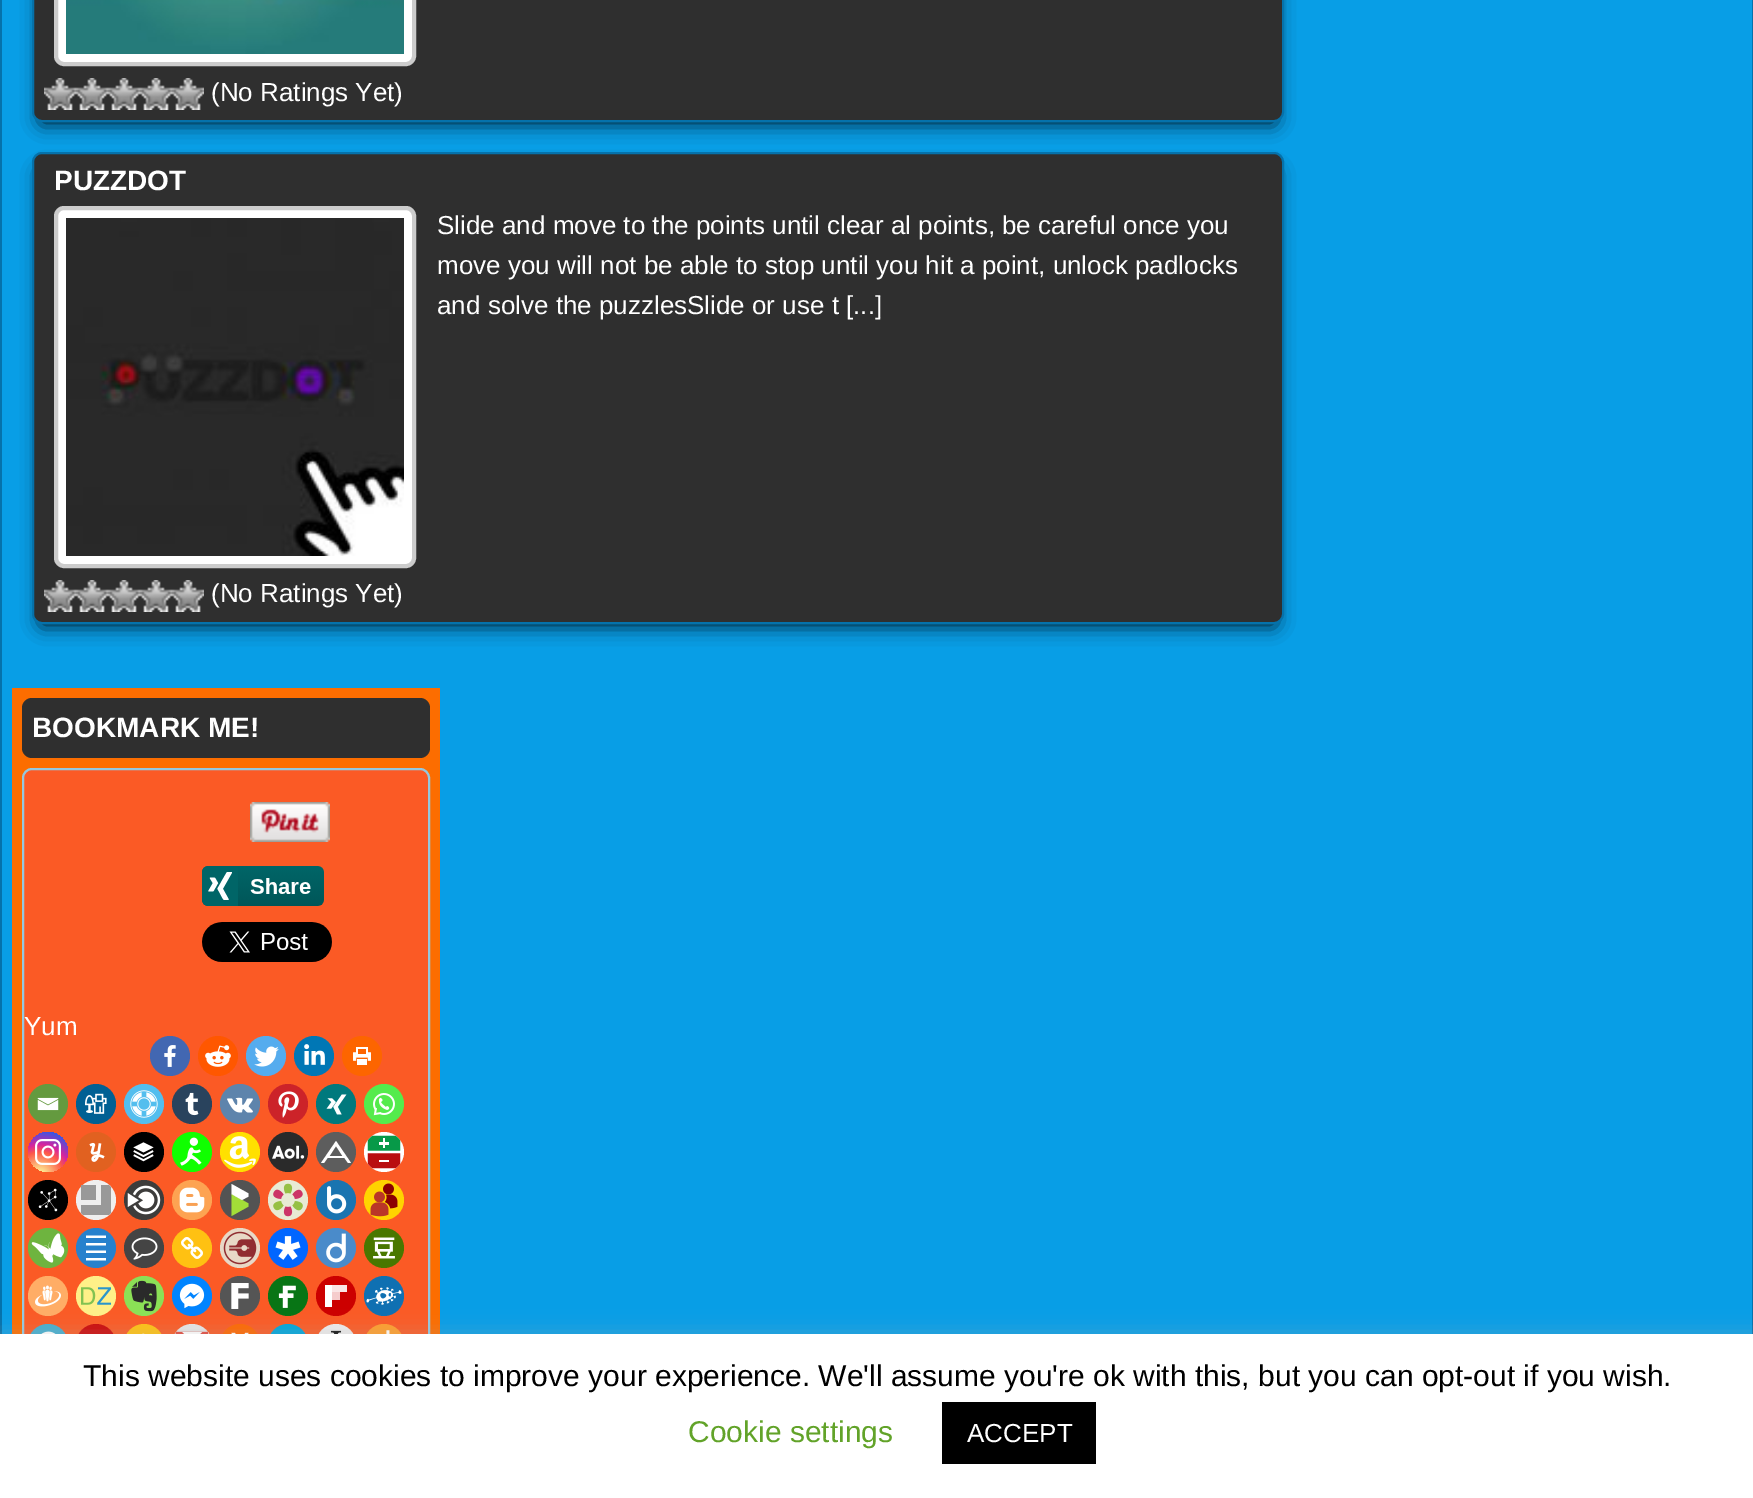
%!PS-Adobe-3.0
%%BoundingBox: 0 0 1753 1498
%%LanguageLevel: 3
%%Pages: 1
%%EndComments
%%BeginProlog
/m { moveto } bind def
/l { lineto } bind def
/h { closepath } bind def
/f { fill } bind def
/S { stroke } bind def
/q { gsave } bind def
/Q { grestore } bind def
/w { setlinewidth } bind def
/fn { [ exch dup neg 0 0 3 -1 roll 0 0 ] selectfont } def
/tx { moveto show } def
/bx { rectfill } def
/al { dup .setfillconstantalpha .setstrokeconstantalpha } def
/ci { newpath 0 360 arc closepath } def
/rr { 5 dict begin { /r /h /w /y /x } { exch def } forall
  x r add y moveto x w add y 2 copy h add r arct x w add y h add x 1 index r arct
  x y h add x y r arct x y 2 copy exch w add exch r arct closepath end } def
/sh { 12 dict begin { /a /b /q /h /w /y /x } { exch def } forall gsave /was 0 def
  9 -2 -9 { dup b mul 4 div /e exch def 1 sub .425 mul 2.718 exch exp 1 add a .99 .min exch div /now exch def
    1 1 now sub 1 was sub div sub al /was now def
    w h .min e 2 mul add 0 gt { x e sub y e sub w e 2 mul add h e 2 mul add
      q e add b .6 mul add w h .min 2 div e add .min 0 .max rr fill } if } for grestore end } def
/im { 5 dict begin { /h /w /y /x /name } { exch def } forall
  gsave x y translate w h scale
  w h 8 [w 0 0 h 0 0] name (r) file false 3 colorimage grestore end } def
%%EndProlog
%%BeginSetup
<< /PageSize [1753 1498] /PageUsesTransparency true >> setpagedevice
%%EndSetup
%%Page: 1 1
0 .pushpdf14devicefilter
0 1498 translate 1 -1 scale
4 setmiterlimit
0.02 0.447 0.671 setrgbcolor
0 0 1753 1498 bx
0.031 0.62 0.902 setrgbcolor
2 0 1750 1334 bx
0 setgray
42 -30 1232 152 0 10 1 sh
0.184 setgray
33 -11 1250 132 9 rr q f Q
0.02 0.447 0.671 setrgbcolor
2 w
S
1 setgray
56 -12 358 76 8 rr q f Q
0.8 setgray
4 w
S
(image0.raw) 66 0 338 54 im
(image1.raw) 44 78 32 32 im
(image1.raw) 76 78 32 32 im
(image1.raw) 108 78 32 32 im
(image1.raw) 140 78 32 32 im
(image1.raw) 172 78 32 32 im
/LiberationSans-Regular 26 fn
1 setgray
(\(No Ratings Yet\)) 211 101 tx
0 setgray
42 172 1232 452 0 10 1 sh
0.184 setgray
33 153 1250 470 9 rr q f Q
0.02 0.447 0.671 setrgbcolor
2 w
S
/LiberationSans-Bold 28 fn
1 setgray
(PUZZDOT) 54 190 tx
56 208 358 358 8 rr q f Q
0.8 setgray
4 w
S
(image2.raw) 66 218 338 338 im
/LiberationSans-Regular 26 fn
1 setgray
(Slide and move to the points until clear al points, be careful once you) 437 234 tx
(move you will not be able to stop until you hit a point, unlock padlocks) 437 274 tx
(and solve the puzzlesSlide or use t [...]) 437 314 tx
(image1.raw) 44 580 32 32 im
(image1.raw) 76 580 32 32 im
(image1.raw) 108 580 32 32 im
(image1.raw) 140 580 32 32 im
(image1.raw) 172 580 32 32 im
(\(No Ratings Yet\)) 211 602 tx
0.988 0.427 0 setrgbcolor
12 688 428 646 bx
0.184 setgray
22 698 408 60 10 rr f
/LiberationSans-Bold 28 fn
1 setgray
(BOOKMARK ME!) 32 737 tx
0.984 0.353 0.145 setrgbcolor
23 769 406 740 9 rr q f Q
0.58 0.784 0.875 setrgbcolor
2 w
S
(image3.raw) 250 802 80 40 im
(image4.raw) 202 866 122 40 im
(image5.raw) 202 922 130 40 im
/LiberationSans-Regular 26 fn
1 setgray
(Yum) 24 1035 tx
0.259 0.404 0.698 setrgbcolor
170 1056 20 ci f
(image6.raw) 164 1045 12 22 im
1 0.341 0 setrgbcolor
218 1056 20 ci f
(image7.raw) 205 1045 26 22 im
0.333 0.675 0.933 setrgbcolor
266 1056 20 ci f
(image8.raw) 254 1046 25 21 im
0 0.467 0.71 setrgbcolor
314 1056 20 ci f
(image9.raw) 304 1044 21 21 im
0.992 0.396 0 setrgbcolor
362 1056 20 ci f
(image10.raw) 353 1047 18 18 im
0.392 0.604 0.247 setrgbcolor
48 1104 20 ci f
(image11.raw) 37 1097 22 14 im
0 0.376 0.58 setrgbcolor
96 1104 20 ci f
(image12.raw) 85 1093 22 21 im
0.325 0.745 0.933 setrgbcolor
144 1104 20 ci f
(image13.raw) 130 1090 28 28 im
0.161 0.263 0.365 setrgbcolor
192 1104 20 ci f
(image14.raw) 185 1092 14 24 im
0.369 0.518 0.675 setrgbcolor
240 1104 20 ci f
(image15.raw) 227 1097 26 16 im
0.8 0.137 0.161 setrgbcolor
288 1104 20 ci f
(image16.raw) 278 1091 21 27 im
0 0.475 0.49 setrgbcolor
336 1104 20 ci f
(image17.raw) 326 1094 21 21 im
0.333 0.922 0.298 setrgbcolor
384 1104 20 ci f
(image18.raw) 373 1093 22 23 im
q 48 1152 20 ci clip newpath 40 1175 translate 51 51 scale
<< /ShadingType 3 /ColorSpace /DeviceRGB /Coords [0 0 0 0 0 1] /Extend [true true] /Function << /FunctionType 3 /Domain [0 1] /Functions [<< /FunctionType 2 /Domain [0 1] /C0 [0.992 0.957 0.592] /C1 [0.992 0.957 0.592] /N 1 >> << /FunctionType 2 /Domain [0 1] /C0 [0.992 0.957 0.592] /C1 [0.992 0.349 0.286] /N 1 >> << /FunctionType 2 /Domain [0 1] /C0 [0.992 0.349 0.286] /C1 [0.839 0.141 0.624] /N 1 >> << /FunctionType 2 /Domain [0 1] /C0 [0.839 0.141 0.624] /C1 [0.157 0.353 0.922] /N 1 >> << /FunctionType 2 /Domain [0 1] /C0 [0.157 0.353 0.922] /C1 [0.157 0.353 0.922] /N 1 >>] /Bounds [0.05 0.45 0.6 0.9] /Encode [0 1 0 1 0 1 0 1 0 1] >> >> shfill Q
(image19.raw) 35 1139 26 26 im
0.882 0.38 0.125 setrgbcolor
96 1152 20 ci f
(image20.raw) 89 1142 16 20 im
0 setgray
144 1152 20 ci f
(image21.raw) 133 1142 21 20 im
0.063 1 0 setrgbcolor
192 1152 20 ci f
(image22.raw) 180 1137 22 29 im
1 0.878 0 setrgbcolor
240 1152 20 ci f
(image23.raw) 224 1136 32 32 im
0.165 setgray
288 1152 20 ci f
(image24.raw) 272 1145 33 14 im
0.365 setgray
336 1152 20 ci f
1 setgray
336 1141 m 321 1163 l 324 1163 l 327.5 1158 l 344.5 1158 l 348 1163 l 351 1163 l h 329.5 1156 m 336 1146 l 342.5 1156 l h f
384 1152 20 ci f
(image25.raw) 367 1135 34 34 im
0 setgray
48 1200 20 ci f
(image26.raw) 38 1188 20 24 im
0.937 setgray
96 1200 20 ci f
q
76 1180 40 40 20 rr clip newpath
0.6 setgray
81 1185 15 15 bx
Q
0.6 setgray
101 1185 m 109 1185 l 111 1187 l 111 1213 l 109 1215 l 83 1215 l 81 1213 l 81 1205 l 101 1205 l h f
0.239 0.235 0.231 setrgbcolor
144 1200 20 ci f
(image27.raw) 127 1185 34 30 im
0.992 0.639 0.322 setrgbcolor
192 1200 20 ci f
(image28.raw) 179 1187 26 26 im
0.325 setgray
240 1200 20 ci f
0.639 0.871 0.22 setrgbcolor
248.5 1203.5 m 231.5 1194 l 231.5 1216 l 248.5 1206.5 l f
1 setgray
248.5 1193.5 m 231.5 1184 l 231.5 1194 l 242 1200 l 248.5 1196.5 l f
0.91 0.918 0.831 setrgbcolor
288 1200 20 ci f
(image29.raw) 273 1183 30 34 im
0.102 0.455 0.69 setrgbcolor
336 1200 20 ci f
(image30.raw) 327 1186 20 28 im
1 0.831 0 setrgbcolor
384 1200 20 ci f
(image31.raw) 370 1183 28 34 im
0.431 0.706 0.247 setrgbcolor
48 1248 20 ci f
(image32.raw) 31 1233 34 30 im
0.153 0.506 0.804 setrgbcolor
96 1248 20 ci f
(image33.raw) 86 1235 20 26 im
0.267 setgray
144 1248 20 ci f
(image34.raw) 131 1237 27 23 im
1 0.757 0.071 setrgbcolor
192 1248 20 ci f
(image35.raw) 181 1237 22 22 im
0.91 0.847 0.776 setrgbcolor
240 1248 20 ci f
(image36.raw) 223 1231 34 34 im
0.004 0.4 1 setrgbcolor
288 1248 20 ci f
(image37.raw) 275 1236 26 24 im
0.29 0.545 0.792 setrgbcolor
336 1248 20 ci f
(image38.raw) 326 1233 20 30 im
0.286 0.467 0 setrgbcolor
384 1248 20 ci f
(image39.raw) 373 1237 22 22 im
1 0.678 0.4 setrgbcolor
48 1296 20 ci f
(image40.raw) 35 1285 26 22 im
1 0.941 0.533 setrgbcolor
96 1296 20 ci f
(image41.raw) 81 1287 30 18 im
0.545 0.878 0.337 setrgbcolor
144 1296 20 ci f
(image42.raw) 131 1280 26 32 im
0 0.518 1 setrgbcolor
192 1296 20 ci f
(image43.raw) 179 1283 26 26 im
0.333 setgray
240 1296 20 ci f
(image44.raw) 231 1283 18 26 im
0.031 0.459 0.082 setrgbcolor
288 1296 20 ci f
(image45.raw) 278 1285 18 23 im
0.8 0 0 setrgbcolor
336 1296 20 ci f
0.961 0.8 0.8 setrgbcolor
332 1292 8 8 bx
0.98 0.898 0.898 setrgbcolor
325 1285 22 7 bx
1 setgray
325 1285 7 22 bx
0.059 0.439 0.698 setrgbcolor
384 1296 20 ci f
(image46.raw) 366 1287 36 18 im
0.275 0.682 0.812 setrgbcolor
48 1344 20 ci f
(image47.raw) 41 1331 15 3 im
0.796 0.035 0.035 setrgbcolor
96 1344 20 ci f
1 0.757 0.071 setrgbcolor
144 1344 20 ci f
(image48.raw) 142 1333 3 1 im
0.898 setgray
192 1344 20 ci f
(image49.raw) 175 1331 34 3 im
1 0.4 0 setrgbcolor
240 1344 20 ci f
(image50.raw) 231 1332 18 2 im
0 0.651 0.859 setrgbcolor
288 1344 20 ci f
0.929 setgray
336 1344 20 ci f
(image51.raw) 330 1330 12 4 im
1 0.62 0.173 setrgbcolor
384 1344 20 ci f
(image52.raw) 386 1330 4 4 im
0.675 0.671 0.671 setrgbcolor
0 1332 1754 164 0 10 0.3 sh
1 setgray
0 1334 1753 164 bx
/LiberationSans-Regular 30 fn
0 setgray
(This website uses cookies to improve your experience. We'll assume you're ok with this, but you can opt-out if you wish.) 83 1386 tx
0.384 0.639 0.161 setrgbcolor
(Cookie settings) 688 1442 tx
0 setgray
942 1402 154 62 bx
/LiberationSans-Regular 26 fn
1 setgray
(ACCEPT) 967 1442 tx
.poppdf14devicefilter showpage
%%EOF
